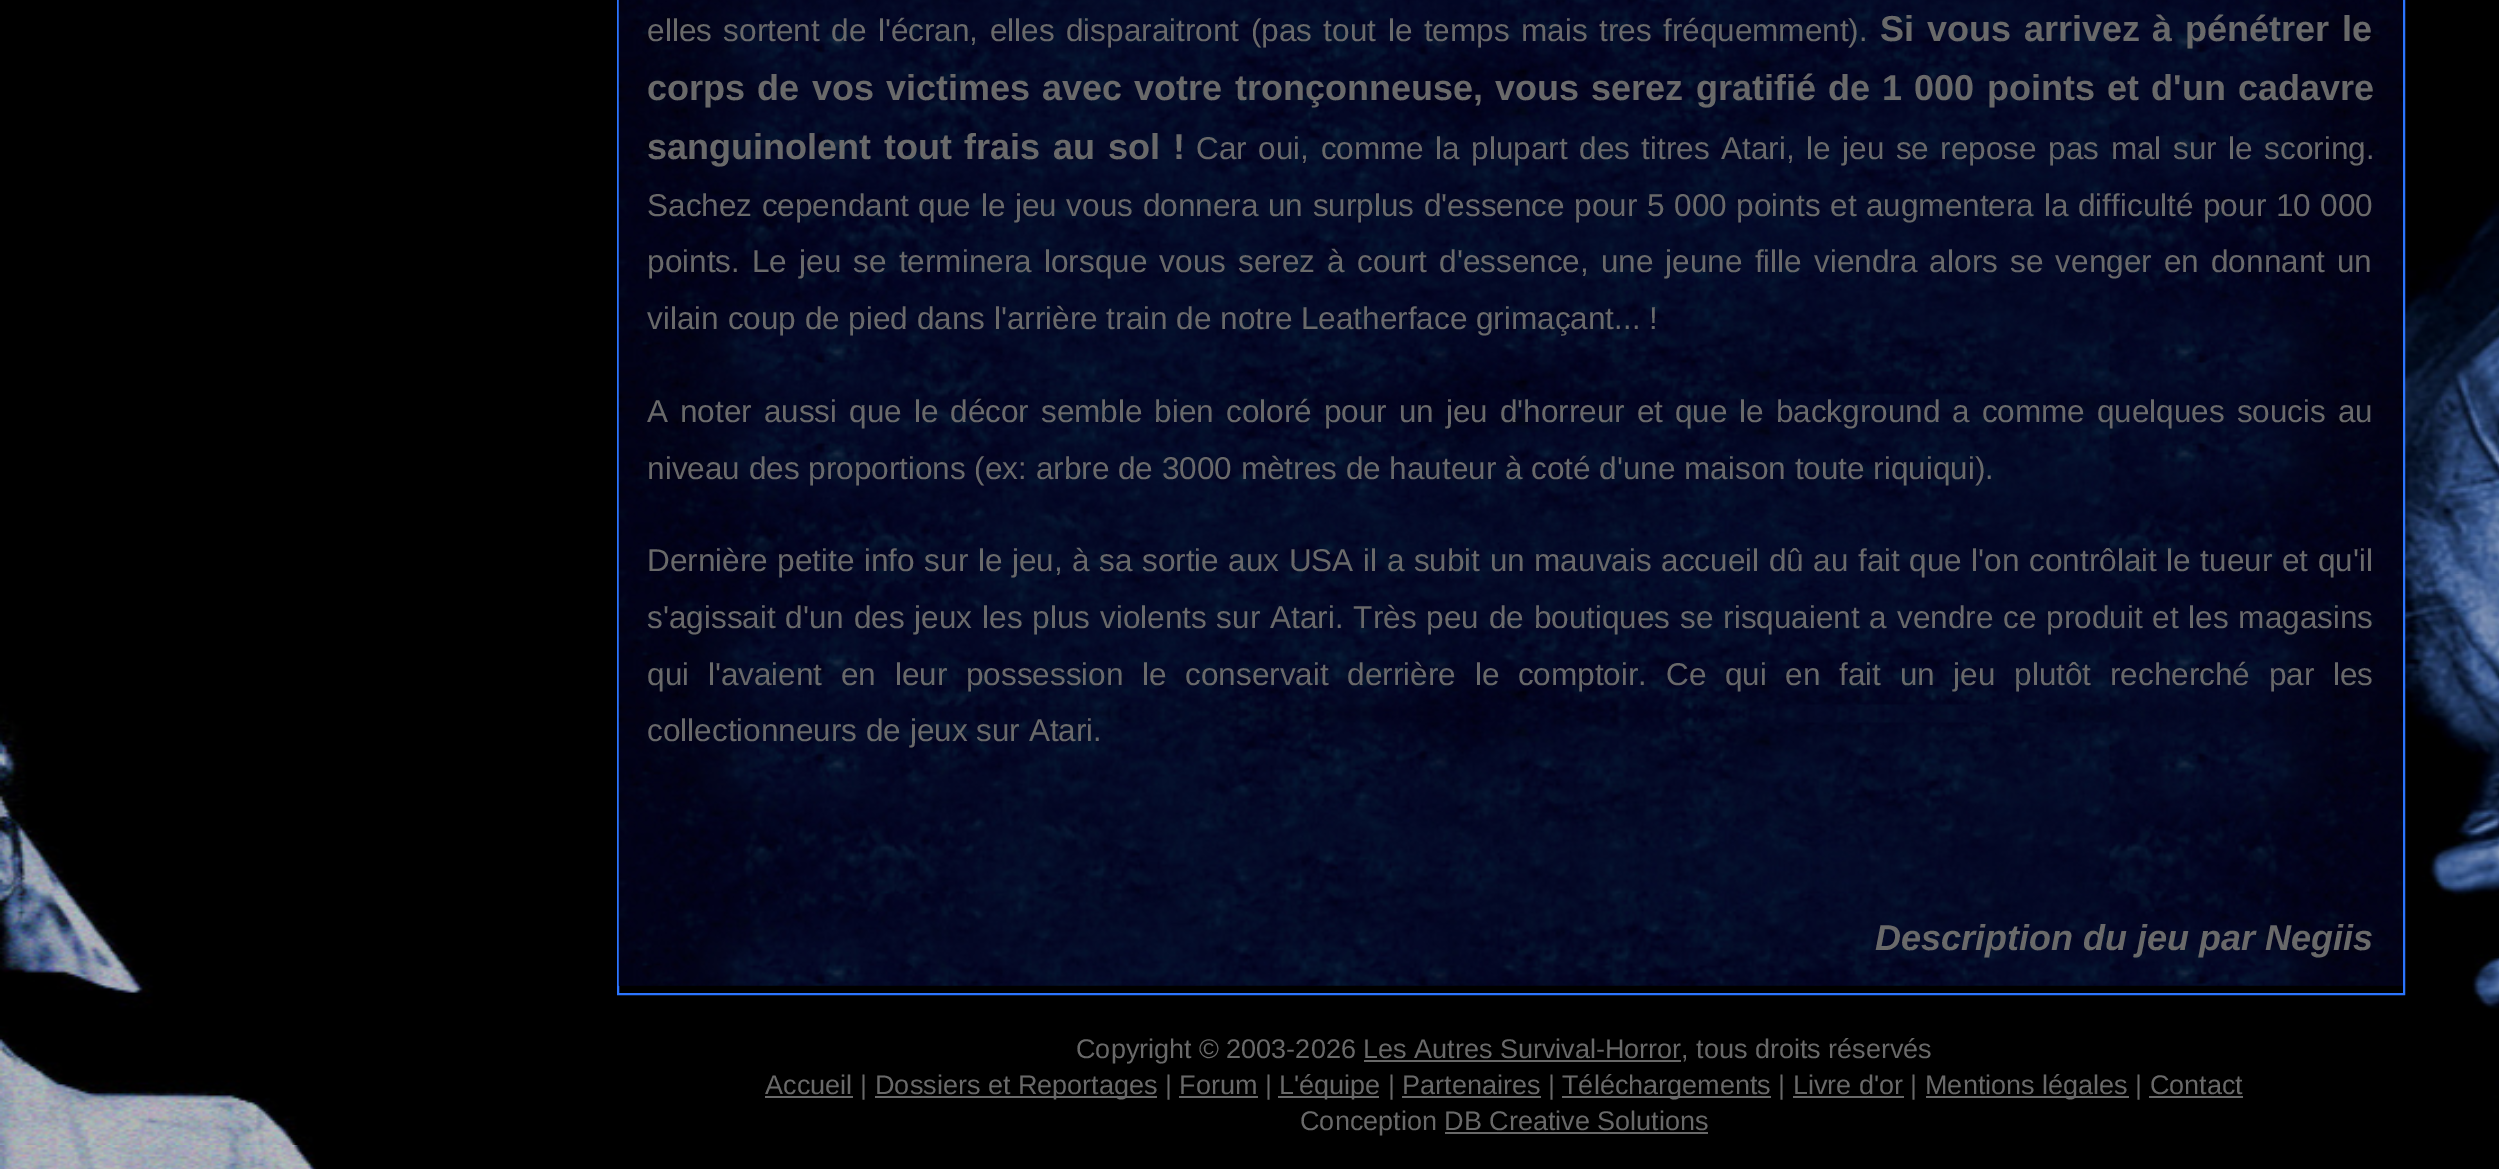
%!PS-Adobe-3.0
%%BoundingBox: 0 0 2499 1169
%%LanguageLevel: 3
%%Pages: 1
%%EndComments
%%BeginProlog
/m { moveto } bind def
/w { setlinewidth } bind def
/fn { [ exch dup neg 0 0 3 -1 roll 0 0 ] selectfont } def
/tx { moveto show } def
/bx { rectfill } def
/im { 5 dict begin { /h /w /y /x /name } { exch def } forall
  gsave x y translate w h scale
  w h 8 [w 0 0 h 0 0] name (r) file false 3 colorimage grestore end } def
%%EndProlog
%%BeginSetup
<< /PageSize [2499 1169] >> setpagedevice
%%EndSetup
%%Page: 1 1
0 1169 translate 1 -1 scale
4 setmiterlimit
0 setgray
0 0 2499 1169 bx
(image0.raw) 0 200 2499 969 im
0.173 0.459 1 setrgbcolor
2 w
618 -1 1786 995 rectstroke
(image1.raw) 618 0 1785 986 im
/LiberationSans-Regular 31.5 fn
0.412 setgray
647 41 m 2.75 0 32 (elles sortent de l'écran, elles disparaitront \(pas tout le temps mais tres fréquemment\).) widthshow
/LiberationSans-Bold 36 fn
1880 41 m 2.75 0 32 (Si vous arrivez à pénétrer le) widthshow
647 100 m 2.25 0 32 (corps de vos victimes avec votre tronçonneuse, vous serez gratifié de 1 000 points et d'un cadavre) widthshow
647 159 m 2.75 0 32 (sanguinolent tout frais au sol !) widthshow
/LiberationSans-Regular 31.5 fn
1196 159 m 2.75 0 32 (Car oui, comme la plupart des titres Atari, le jeu se repose pas mal sur le scoring.) widthshow
647 216 m 0.9 0 32 (Sachez cependant que le jeu vous donnera un surplus d'essence pour 5 000 points et augmentera la difficulté pour 10 000) widthshow
647 272 m 3.4 0 32 (points. Le jeu se terminera lorsque vous serez à court d'essence, une jeune fille viendra alors se venger en donnant un) widthshow
(vilain coup de pied dans l'arrière train de notre Leatherface grimaçant... !) 647 329 tx
647 422 m 3.2 0 32 (A noter aussi que le décor semble bien coloré pour un jeu d'horreur et que le background a comme quelques soucis au) widthshow
(niveau des proportions \(ex: arbre de 3000 mètres de hauteur à coté d'une maison toute riquiqui\).) 647 479 tx
647 571 m 0.8 0 32 (Dernière petite info sur le jeu, à sa sortie aux USA il a subit un mauvais accueil dû au fait que l'on contrôlait le tueur et qu'il) widthshow
647 628 m 1.1 0 32 (s'agissait d'un des jeux les plus violents sur Atari. Très peu de boutiques se risquaient a vendre ce produit et les magasins) widthshow
647 685 m 9.9 0 32 (qui l'avaient en leur possession) widthshow
1142 685 m 9.9 0 32 (le conservait derrière le comptoir. Ce qui en fait un jeu plutôt recherché par les) widthshow
(collectionneurs de jeux sur Atari.) 647 741 tx
/LiberationSans-BoldItalic 36 fn
(Description du jeu par Negiis) 1875 950 tx
/LiberationSans-Regular 27 fn
(Copyright © 2003-2026 Les Autres Survival-Horror, tous droits réservés) 1076 1058 tx
1364 1060 317 2 bx
765 1096 88 2 bx
(Accueil |) 765 1094 tx
875 1096 282 2 bx
(Dossiers et Reportages | Forum |) 875 1094 tx
1179 1096 79 2 bx
1278 1096 101 2 bx
(L'équipe | Partenaires |) 1279 1094 tx
1402 1096 139 2 bx
1562 1096 209 2 bx
(Téléchargements | Livre d'or |) 1562 1094 tx
1793 1096 111 2 bx
1926 1096 203 2 bx
(Mentions légales | Contact) 1925 1094 tx
2149 1096 94 2 bx
(Conception DB Creative Solutions) 1300 1130 tx
1445 1132 263 2 bx
showpage
%%EOF
